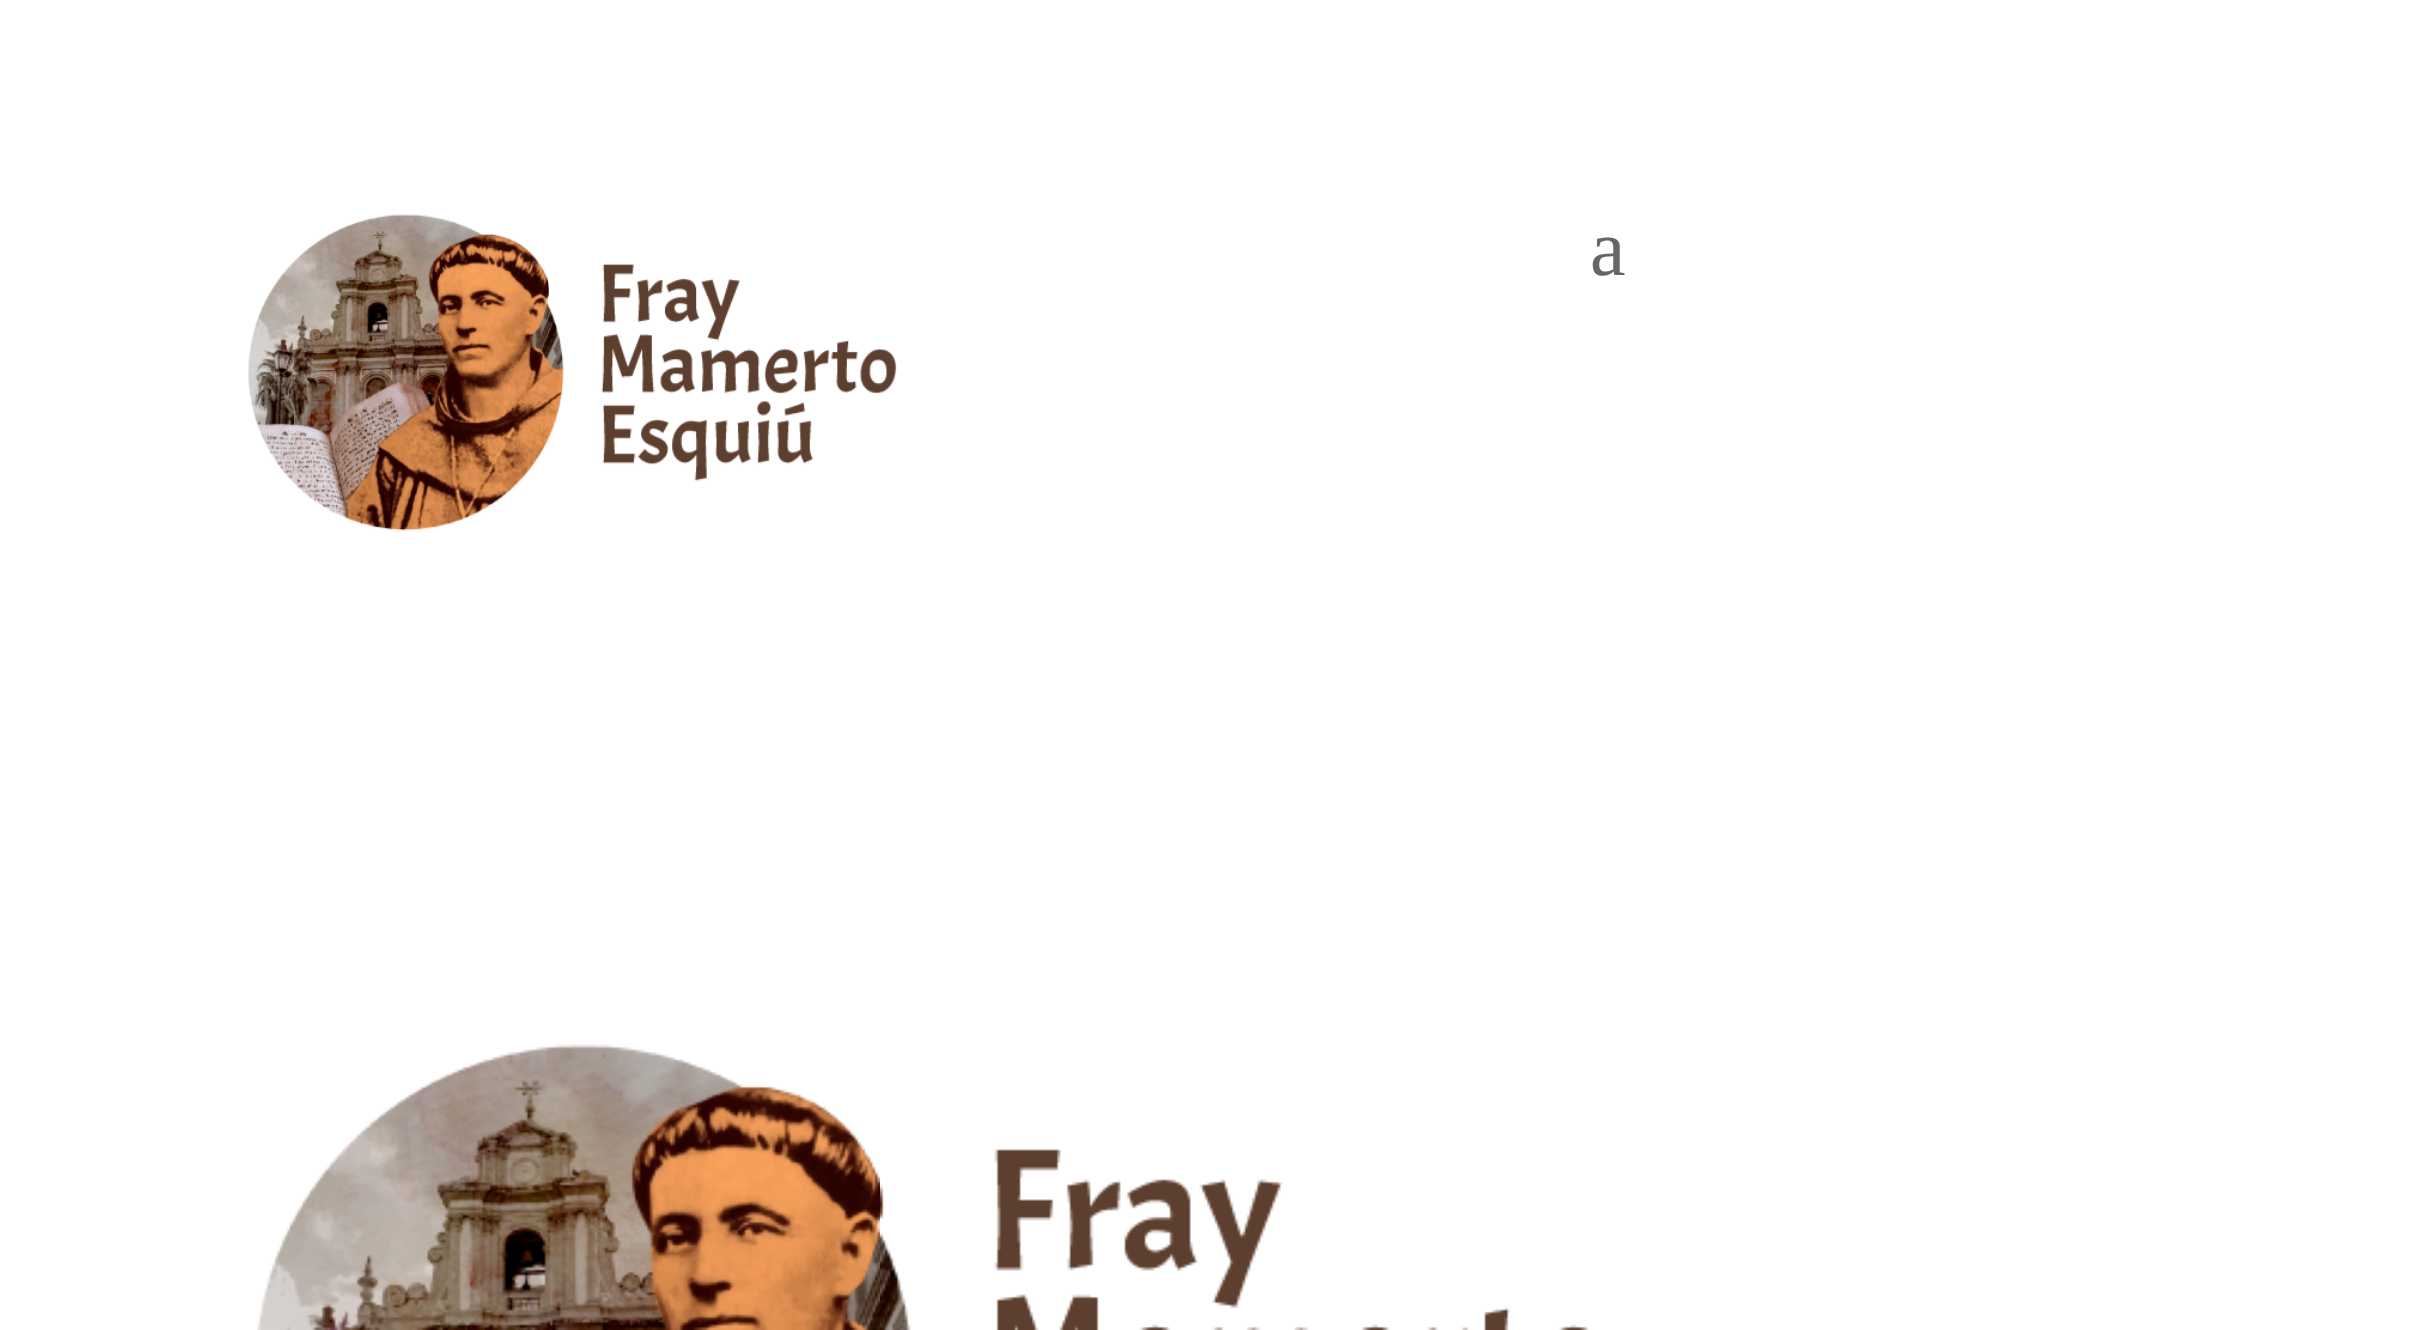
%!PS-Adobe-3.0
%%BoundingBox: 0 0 2433 1330
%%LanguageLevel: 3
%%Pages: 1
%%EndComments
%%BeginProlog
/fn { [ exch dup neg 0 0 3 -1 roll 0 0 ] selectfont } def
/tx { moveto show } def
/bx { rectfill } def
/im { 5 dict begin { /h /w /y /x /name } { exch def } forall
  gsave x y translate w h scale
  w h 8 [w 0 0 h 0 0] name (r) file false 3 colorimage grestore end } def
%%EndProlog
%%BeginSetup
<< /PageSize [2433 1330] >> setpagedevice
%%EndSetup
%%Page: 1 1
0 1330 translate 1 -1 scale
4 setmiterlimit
1 setgray
0 0 2433 1330 bx
(image0.raw) 248 214 649 317 im
/LiberationSerif-Regular 80 fn
0.4 setgray
(a) 1590 275 tx
(image1.raw) 257 1044 1332 286 im
showpage
%%EOF
